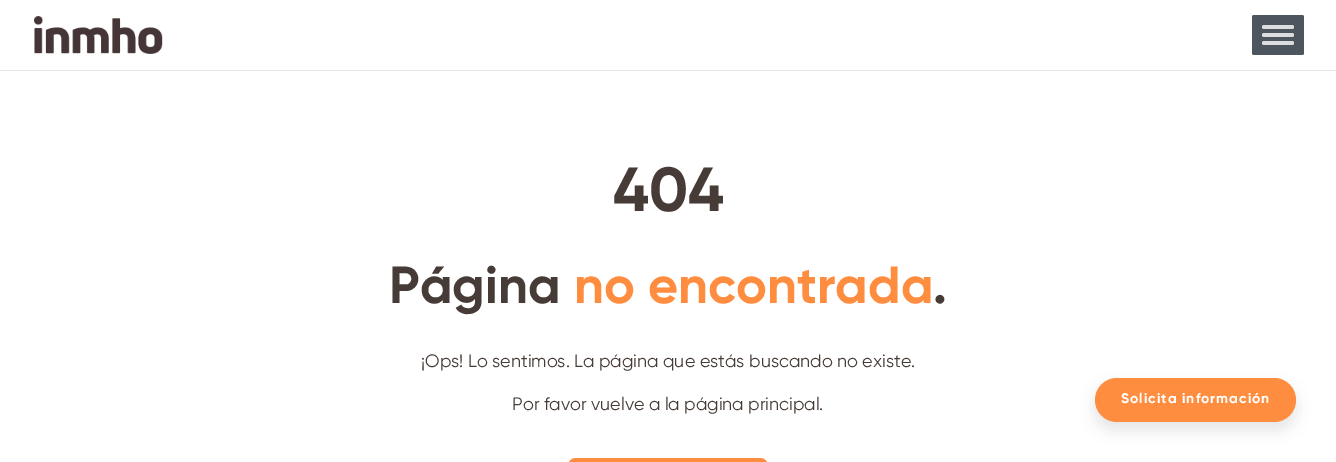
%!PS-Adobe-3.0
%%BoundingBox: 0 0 1336 462
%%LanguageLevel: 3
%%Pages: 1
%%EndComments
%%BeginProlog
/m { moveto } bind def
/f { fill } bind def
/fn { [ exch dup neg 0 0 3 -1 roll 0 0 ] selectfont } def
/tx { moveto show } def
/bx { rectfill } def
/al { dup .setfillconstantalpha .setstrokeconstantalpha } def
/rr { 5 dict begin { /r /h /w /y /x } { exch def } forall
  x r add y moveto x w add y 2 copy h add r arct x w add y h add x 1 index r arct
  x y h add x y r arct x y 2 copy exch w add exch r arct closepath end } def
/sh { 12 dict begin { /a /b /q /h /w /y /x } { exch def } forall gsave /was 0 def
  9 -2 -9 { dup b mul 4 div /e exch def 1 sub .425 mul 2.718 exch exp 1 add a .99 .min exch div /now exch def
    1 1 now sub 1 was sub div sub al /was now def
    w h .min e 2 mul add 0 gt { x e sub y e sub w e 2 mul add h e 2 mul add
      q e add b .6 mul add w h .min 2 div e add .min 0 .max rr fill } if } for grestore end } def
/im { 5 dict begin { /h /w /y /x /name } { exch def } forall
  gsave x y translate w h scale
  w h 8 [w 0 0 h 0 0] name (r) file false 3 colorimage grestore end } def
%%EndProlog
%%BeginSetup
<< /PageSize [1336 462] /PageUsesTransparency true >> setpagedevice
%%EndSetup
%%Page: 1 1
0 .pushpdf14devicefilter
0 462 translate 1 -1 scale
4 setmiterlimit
1 setgray
0 0 1336 462 bx
0.902 setgray
0 70 1336 1 bx
(image0.raw) 34 16 129 38 im
0.302 0.337 0.373 setrgbcolor
1252 15 52 40 2 rr f
0.867 setgray
1262 25 32 4 2 rr f
1262 33 32 4 2 rr f
1262 41 32 4 2 rr f
/Gilroy-Bold 62 fn
0.275 0.231 0.212 setrgbcolor
(404) 613 211 tx
/Gilroy-Bold 52 fn
(Página) 389 303 tx
1 0.553 0.247 setrgbcolor
(no encontrada) 574 303 tx
0.275 0.231 0.212 setrgbcolor
(.) 933 303 tx
/Gilroy-Regular 18 fn
(¡Ops! Lo sentimos. La página que estás buscando no existe.) 421 367 tx
(Por favor vuelve a la página principal.) 512 410 tx
1 0.553 0.247 setrgbcolor
568 458 200 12 8 rr f
0 setgray
1095 386 201 44 22 7.5 0.1 sh
1 0.553 0.247 setrgbcolor
1095 378 201 44 22 rr f
/Gilroy-Bold 14 fn
1 setgray
1121 403 m 1 0 (Solicita información) ashow
.poppdf14devicefilter showpage
%%EOF
